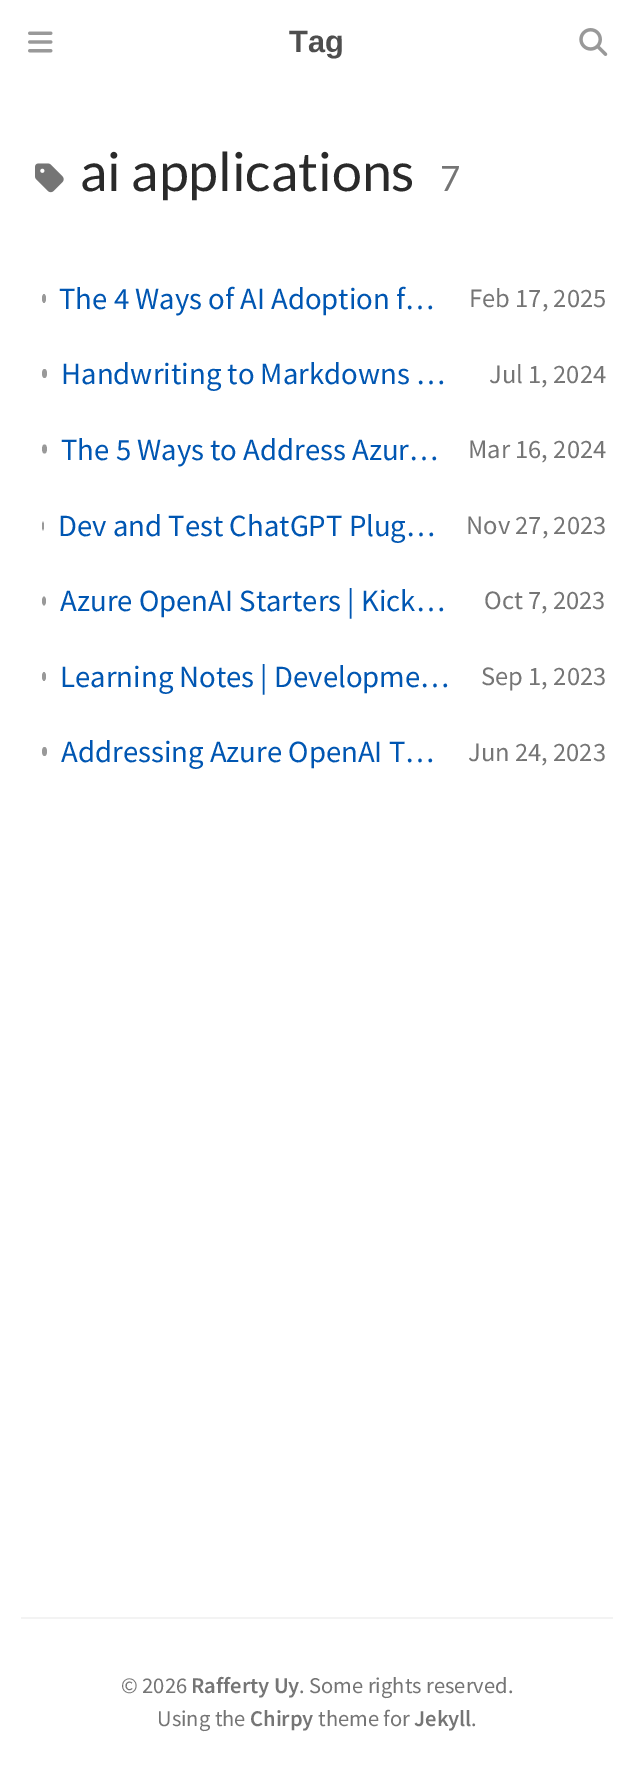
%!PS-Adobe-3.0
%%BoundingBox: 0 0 633 1784
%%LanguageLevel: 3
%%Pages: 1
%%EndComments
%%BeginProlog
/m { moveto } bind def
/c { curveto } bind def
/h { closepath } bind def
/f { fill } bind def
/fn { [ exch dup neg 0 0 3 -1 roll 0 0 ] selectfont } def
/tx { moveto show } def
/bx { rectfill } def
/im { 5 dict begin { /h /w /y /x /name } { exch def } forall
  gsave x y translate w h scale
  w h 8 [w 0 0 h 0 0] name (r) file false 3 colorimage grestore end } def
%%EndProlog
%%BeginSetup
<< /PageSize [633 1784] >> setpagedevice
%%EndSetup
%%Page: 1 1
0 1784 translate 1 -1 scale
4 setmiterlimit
1 setgray
0 0 633 1784 bx
(image0.raw) 28 31 25 22 im
/LiberationSans-Bold 30.75 fn
0.306 setgray
(Tag) 289 52 tx
(image1.raw) 579 28 29 28 im
(image2.raw) 35 163 29 30 im
/Lato-Regular 53.75 fn
0.165 setgray
(ai applications) 80 191 tx
/Lato-Regular 35 fn
0.459 setgray
(7) 440 191 tx
0.6 setgray
44 294 m 45 294 46 296 46 298.5 c 46 301 45 303 44 303 c 43 303 42 301 42 298.5 c 42 296 43 294 44 294 c h f
/SourceSansPro-Regular 30.75 fn
0 0.337 0.698 setrgbcolor
(The 4 Ways of AI Adoption f…) 59 309 tx
/SourceSansPro-Regular 26.5 fn
0.459 setgray
(Feb 17, 2025) 469 307 tx
0.6 setgray
44.5 369 m 46 369 47 371 47 373.5 c 47 376 46 378 44.5 378 c 43 378 42 376 42 373.5 c 42 371 43 369 44.5 369 c h f
/SourceSansPro-Regular 30.75 fn
0 0.337 0.698 setrgbcolor
(Handwriting to Markdowns …) 61 384 tx
/SourceSansPro-Regular 26.5 fn
0.459 setgray
(Jul 1, 2024) 489 383 tx
0.6 setgray
44.5 444.5 m 46 444.5 47 446.5 47 449 c 47 451.5 46 453.5 44.5 453.5 c 43 453.5 42 451.5 42 449 c 42 446.5 43 444.5 44.5 444.5 c h f
/SourceSansPro-Regular 30.75 fn
0 0.337 0.698 setrgbcolor
(The 5 Ways to Address Azur…) 61 460 tx
/SourceSansPro-Regular 26.5 fn
0.459 setgray
(Mar 16, 2024) 468 458 tx
0.6 setgray
43 521.5 m 43.5 521.5 44 523.5 44 526 c 44 528.5 43.5 530.5 43 530.5 c 42.5 530.5 42 528.5 42 526 c 42 523.5 42.5 521.5 43 521.5 c h f
/SourceSansPro-Regular 30.75 fn
0 0.337 0.698 setrgbcolor
(Dev and Test ChatGPT Plug…) 58 536 tx
/SourceSansPro-Regular 26.5 fn
0.459 setgray
(Nov 27, 2023) 466 534 tx
0.6 setgray
44 596.5 m 45 596.5 46 598.5 46 601 c 46 603.5 45 605.5 44 605.5 c 43 605.5 42 603.5 42 601 c 42 598.5 43 596.5 44 596.5 c h f
/SourceSansPro-Regular 30.75 fn
0 0.337 0.698 setrgbcolor
(Azure OpenAI Starters | Kick…) 60 611 tx
/SourceSansPro-Regular 26.5 fn
0.459 setgray
(Oct 7, 2023) 484 609 tx
0.6 setgray
44 672 m 45 672 46 674 46 676.5 c 46 679 45 681 44 681 c 43 681 42 679 42 676.5 c 42 674 43 672 44 672 c h f
/SourceSansPro-Regular 30.75 fn
0 0.337 0.698 setrgbcolor
(Learning Notes | Developme…) 60 687 tx
/SourceSansPro-Regular 26.5 fn
0.459 setgray
(Sep 1, 2023) 481 685 tx
0.6 setgray
44.5 747 m 46 747 47 749 47 751.5 c 47 754 46 756 44.5 756 c 43 756 42 754 42 751.5 c 42 749 43 747 44.5 747 c h f
/SourceSansPro-Regular 30.75 fn
0 0.337 0.698 setrgbcolor
(Addressing Azure OpenAI T…) 61 762 tx
/SourceSansPro-Regular 26.5 fn
0.459 setgray
(Jun 24, 2023) 468 761 tx
0.953 setgray
21 1617 592 2 bx
/SourceSansPro-Regular 22.5 fn
0.459 setgray
(© 2026) 121 1693 tx
/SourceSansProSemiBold-SemiBold 22.5 fn
(Rafferty Uy) 191 1693 tx
/SourceSansPro-Regular 22.5 fn
(. Some rights reserved.) 299 1693 tx
(Using the) 157 1726 tx
/SourceSansProSemiBold-SemiBold 22.5 fn
(Chirpy) 250 1726 tx
/SourceSansPro-Regular 22.5 fn
(theme for) 318 1726 tx
/SourceSansProSemiBold-SemiBold 22.5 fn
(Jekyll) 414 1726 tx
/SourceSansPro-Regular 22.5 fn
(.) 471 1726 tx
showpage
%%EOF
